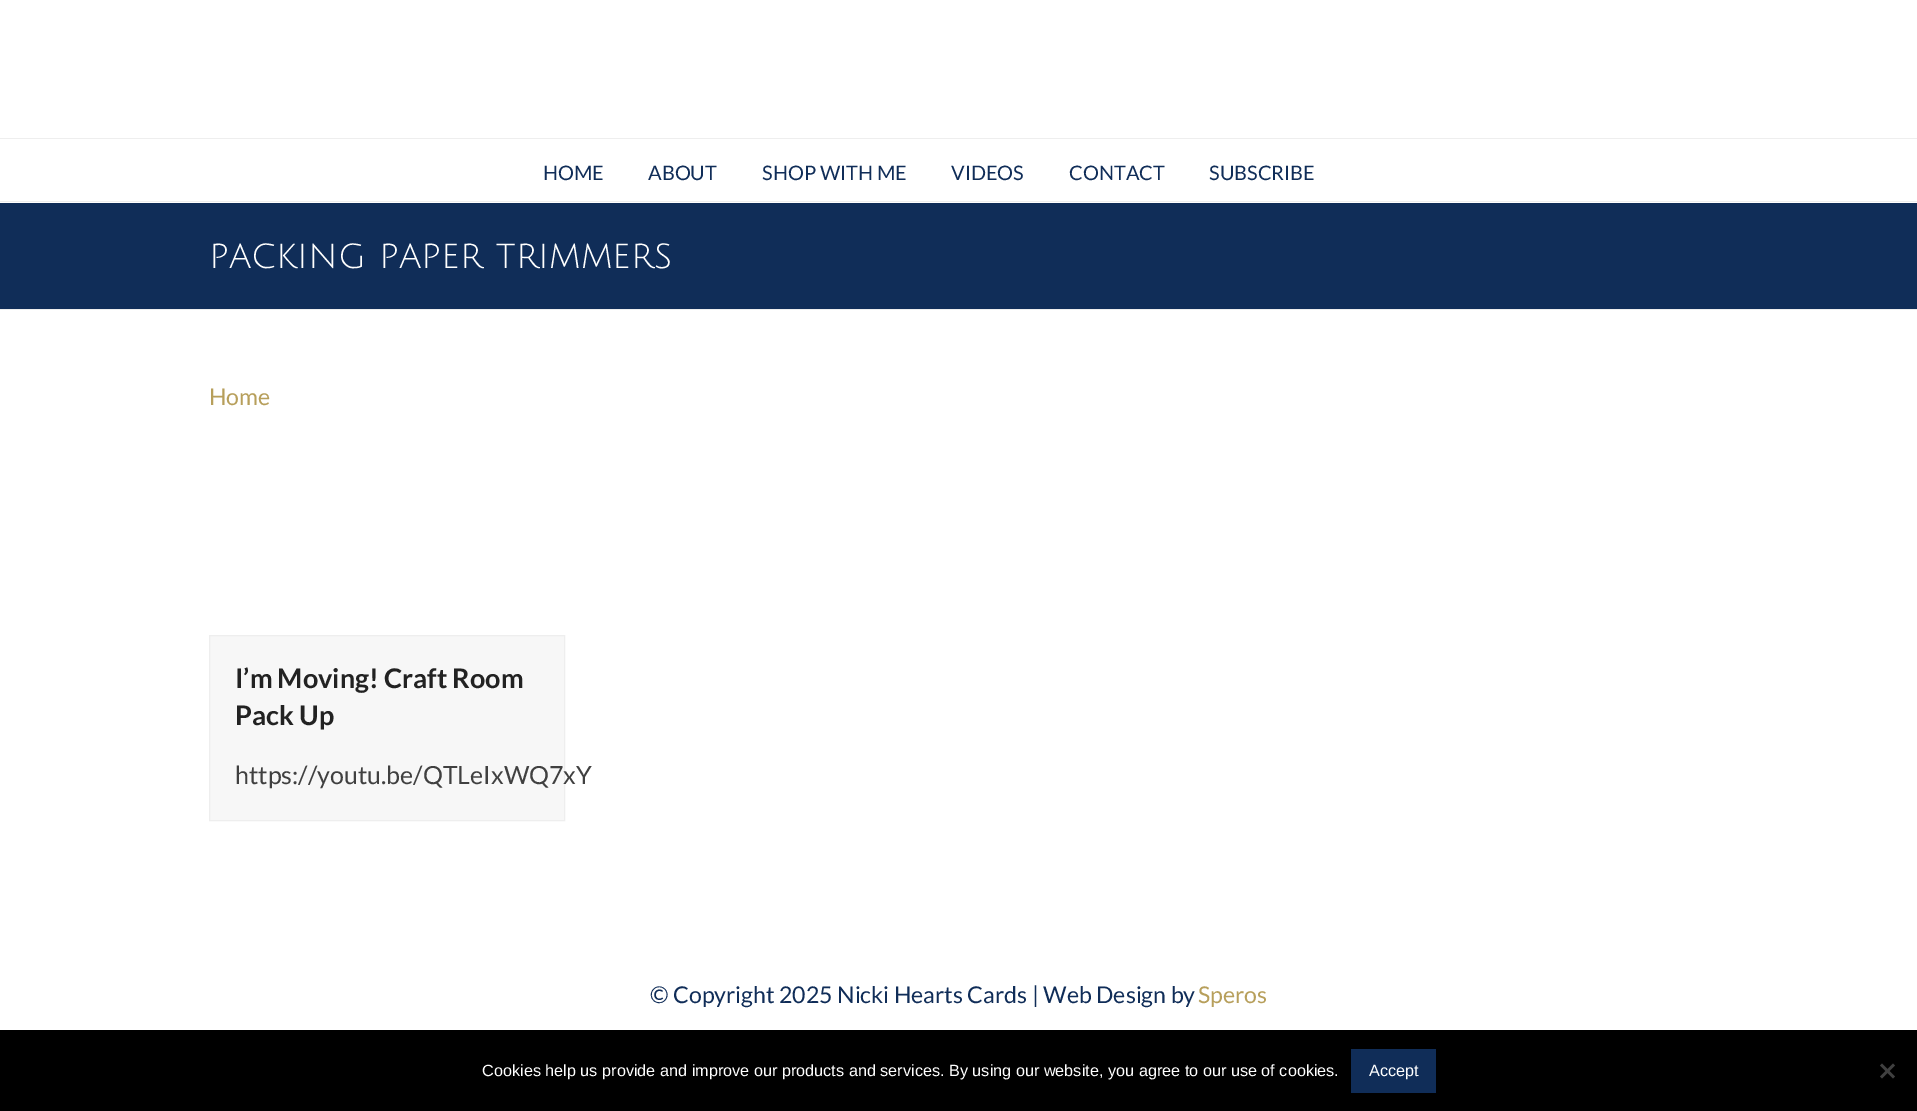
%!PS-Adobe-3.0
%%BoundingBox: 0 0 1917 1111
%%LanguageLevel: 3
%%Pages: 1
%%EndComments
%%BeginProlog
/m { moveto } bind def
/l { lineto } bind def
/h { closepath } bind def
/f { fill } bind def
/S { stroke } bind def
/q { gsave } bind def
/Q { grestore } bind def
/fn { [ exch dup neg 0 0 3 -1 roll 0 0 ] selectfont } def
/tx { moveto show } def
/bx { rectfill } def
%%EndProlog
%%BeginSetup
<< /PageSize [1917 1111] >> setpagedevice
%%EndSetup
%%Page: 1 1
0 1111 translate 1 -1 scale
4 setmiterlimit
1 setgray
0 0 1917 1111 bx
0.933 setgray
0 138 1917 1 bx
/Lato-Regular 20 fn
0.063 0.176 0.345 setrgbcolor
(HOME) 543 180 tx
(ABOUT) 648 180 tx
(SHOP WITH ME) 762 180 tx
(VIDEOS) 951 180 tx
(CONTACT) 1069 180 tx
(SUBSCRIBE) 1209 180 tx
0 203 1917 106 bx
0.933 setgray
0 201 1917 1 bx
0 309 1917 1 bx
/JuliusSansOne-Regular 37.5 fn
1 setgray
(packing paper trimmers) 209 268 tx
/Lato-Regular 23.1 fn
0.718 0.624 0.357 setrgbcolor
(Home) 209 405 tx
0.969 setgray
209.5 635.5 m 564.5 635.5 l 564.5 820.5 l 209.5 820.5 l h q f Q
0.933 setgray
S
/Lato-Bold 27 fn
0.133 setgray
(I’m Moving! Craft Room) 235 688 tx
(Pack Up) 235 725 tx
/Lato-Regular 25 fn
0.251 setgray
(https://youtu.be/QTLeIxWQ7xY) 235 784 tx
/Lato-Regular 23.1 fn
0.063 0.176 0.345 setrgbcolor
(© Copyright 2025 Nicki Hearts Cards | Web Design by) 650 1003 tx
0.718 0.624 0.357 setrgbcolor
(Speros) 1198 1003 tx
0 setgray
0 1030 1917 81 bx
/LiberationSans-Regular 16.25 fn
1 setgray
(Cookies help us provide and improve our products and services. By using our website, you agree to our use of cookies.) 482 1076 tx
0.063 0.176 0.345 setrgbcolor
1351 1049 85 44 bx
1 setgray
(Accept) 1369 1076 tx
0.251 setgray
1893 1063.5 m 1895 1065.5 l 1882 1078.5 l 1880 1076.5 l h f
1880 1065.5 m 1882 1063.5 l 1895 1076.5 l 1893 1078.5 l h f
showpage
%%EOF
